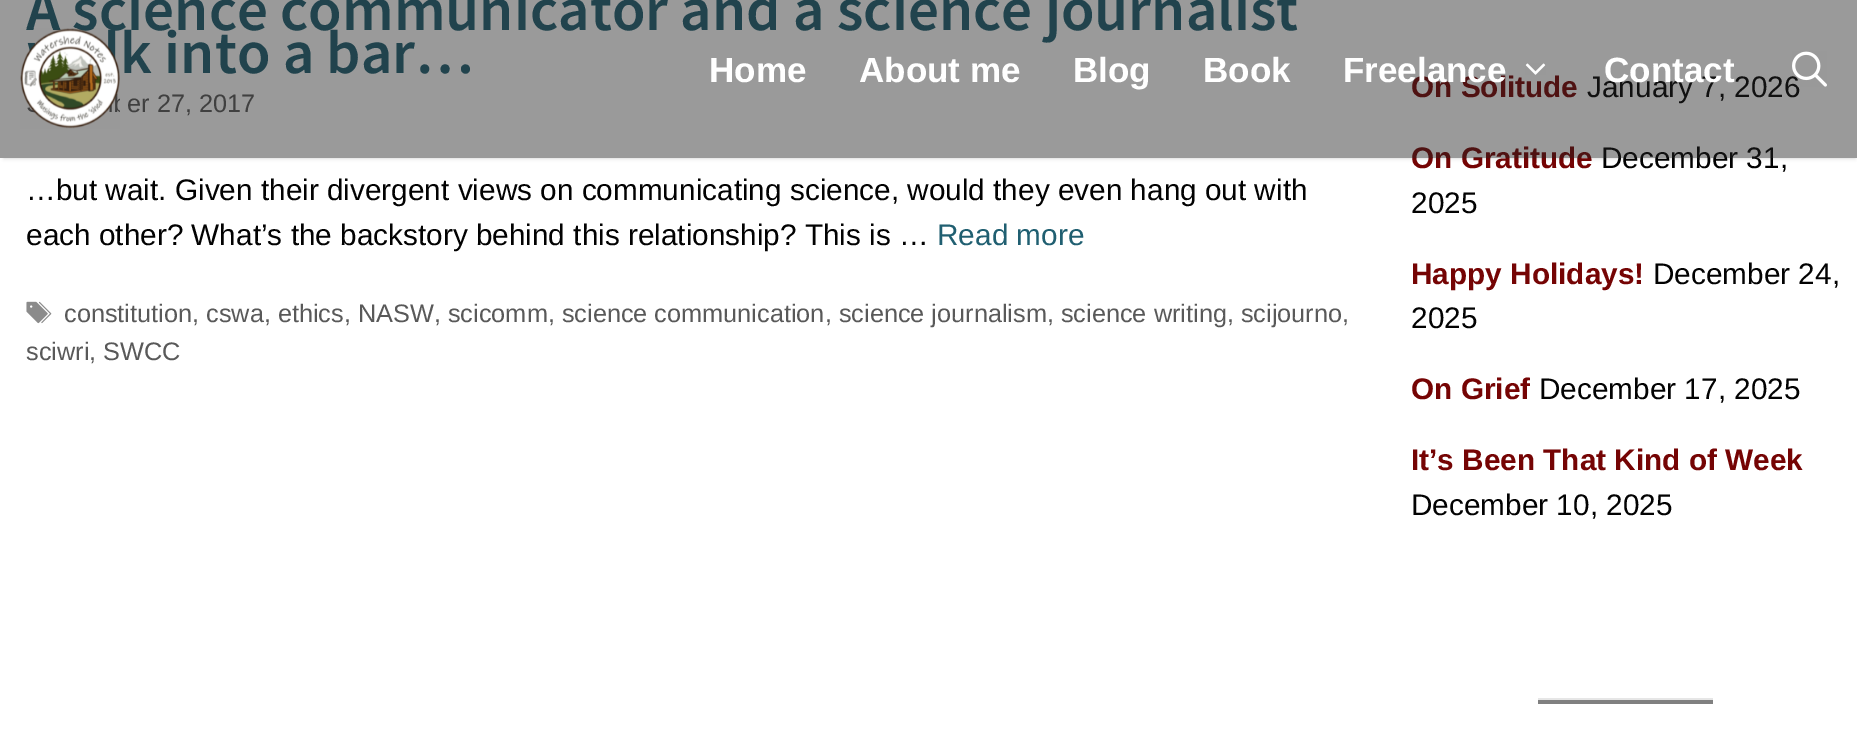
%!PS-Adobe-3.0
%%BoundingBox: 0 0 1857 748
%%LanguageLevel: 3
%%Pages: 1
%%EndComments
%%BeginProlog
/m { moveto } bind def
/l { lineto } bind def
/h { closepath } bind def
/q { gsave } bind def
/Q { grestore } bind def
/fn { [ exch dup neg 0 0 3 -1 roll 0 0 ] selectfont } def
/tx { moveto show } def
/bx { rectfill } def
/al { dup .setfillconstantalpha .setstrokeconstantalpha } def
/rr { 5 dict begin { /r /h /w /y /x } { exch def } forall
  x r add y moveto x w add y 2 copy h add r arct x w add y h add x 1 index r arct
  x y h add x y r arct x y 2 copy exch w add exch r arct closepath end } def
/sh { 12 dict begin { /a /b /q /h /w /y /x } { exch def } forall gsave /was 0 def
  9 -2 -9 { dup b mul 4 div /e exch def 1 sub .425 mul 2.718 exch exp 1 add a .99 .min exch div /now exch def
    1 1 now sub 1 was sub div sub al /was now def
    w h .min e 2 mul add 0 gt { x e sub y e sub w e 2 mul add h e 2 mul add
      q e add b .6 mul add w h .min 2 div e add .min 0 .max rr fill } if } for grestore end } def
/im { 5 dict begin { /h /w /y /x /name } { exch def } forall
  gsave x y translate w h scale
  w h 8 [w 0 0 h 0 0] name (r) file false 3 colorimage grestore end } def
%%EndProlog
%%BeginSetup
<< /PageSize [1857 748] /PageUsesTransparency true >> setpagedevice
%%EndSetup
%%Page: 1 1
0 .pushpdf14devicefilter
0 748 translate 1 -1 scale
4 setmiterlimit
1 setgray
0 0 1857 748 bx
/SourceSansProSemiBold-SemiBold 61.25 fn
0.125 0.373 0.443 setrgbcolor
(A science communicator and a science journalist) 26 30 tx
(k into a bar…) 120 73 tx
/LiberationSans-Regular 25.3 fn
0.349 setgray
(er 27, 2017) 127 112 tx
/LiberationSans-Regular 29.75 fn
0.008 setgray
(…but wait. Given their divergent views on communicating science, would they even hang out with) 26 200 tx
(each other? What’s the backstory behind this relationship? This is …) 26 245 tx
0.125 0.373 0.443 setrgbcolor
(Read more) 937 245 tx
(image0.raw) 26 301 26 23 im
/LiberationSans-Regular 25.3 fn
0.349 setgray
(constitution, cswa, ethics, NASW, scicomm, science communication, science journalism, science writing, scijourno,) 64 322 tx
(sciwri, SWCC) 26 360 tx
/LiberationSans-Bold 29.75 fn
0.459 0.016 0.016 setrgbcolor
(On Solitude) 1411 97 tx
/LiberationSans-Regular 29.75 fn
0.008 setgray
(January 7, 2026) 1587 97 tx
/LiberationSans-Bold 29.75 fn
0.459 0.016 0.016 setrgbcolor
(On Gratitude) 1411 168 tx
/LiberationSans-Regular 29.75 fn
0.008 setgray
(December 31,) 1601 168 tx
(2025) 1411 213 tx
/LiberationSans-Bold 29.75 fn
0.459 0.016 0.016 setrgbcolor
(Happy Holidays!) 1411 284 tx
/LiberationSans-Regular 29.75 fn
0.008 setgray
(December 24,) 1653 284 tx
(2025) 1411 328 tx
/LiberationSans-Bold 29.75 fn
0.459 0.016 0.016 setrgbcolor
(On Grief) 1411 399 tx
/LiberationSans-Regular 29.75 fn
0.008 setgray
(December 17, 2025) 1539 399 tx
/LiberationSans-Bold 29.75 fn
0.459 0.016 0.016 setrgbcolor
(It’s Been That Kind of Week) 1411 470 tx
/LiberationSans-Regular 29.75 fn
0.008 setgray
(December 10, 2025) 1411 515 tx
0.902 setgray
1538 698 175 2 bx
0.502 setgray
1538 700 175 4 bx
q
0 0 m 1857 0 l 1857 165 l 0 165 l h 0 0 m 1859 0 l 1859 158 l 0 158 l h eoclip newpath
0 setgray
4 7 1851 151 0 2 0.2 sh
Q
0.46 al
0.133 setgray
0 0 1857 158 bx
1 al
(image1.raw) 20 28 100 101 im
/LiberationSans-Bold 35 fn
1 setgray
(Home) 709 82 tx
(About me) 859 82 tx
(Blog) 1073 82 tx
(Book) 1203 82 tx
(Freelance) 1343 82 tx
(image2.raw) 1525 63 21 12 im
(Contact) 1604 82 tx
(image3.raw) 1792 51 35 36 im
.poppdf14devicefilter showpage
%%EOF
